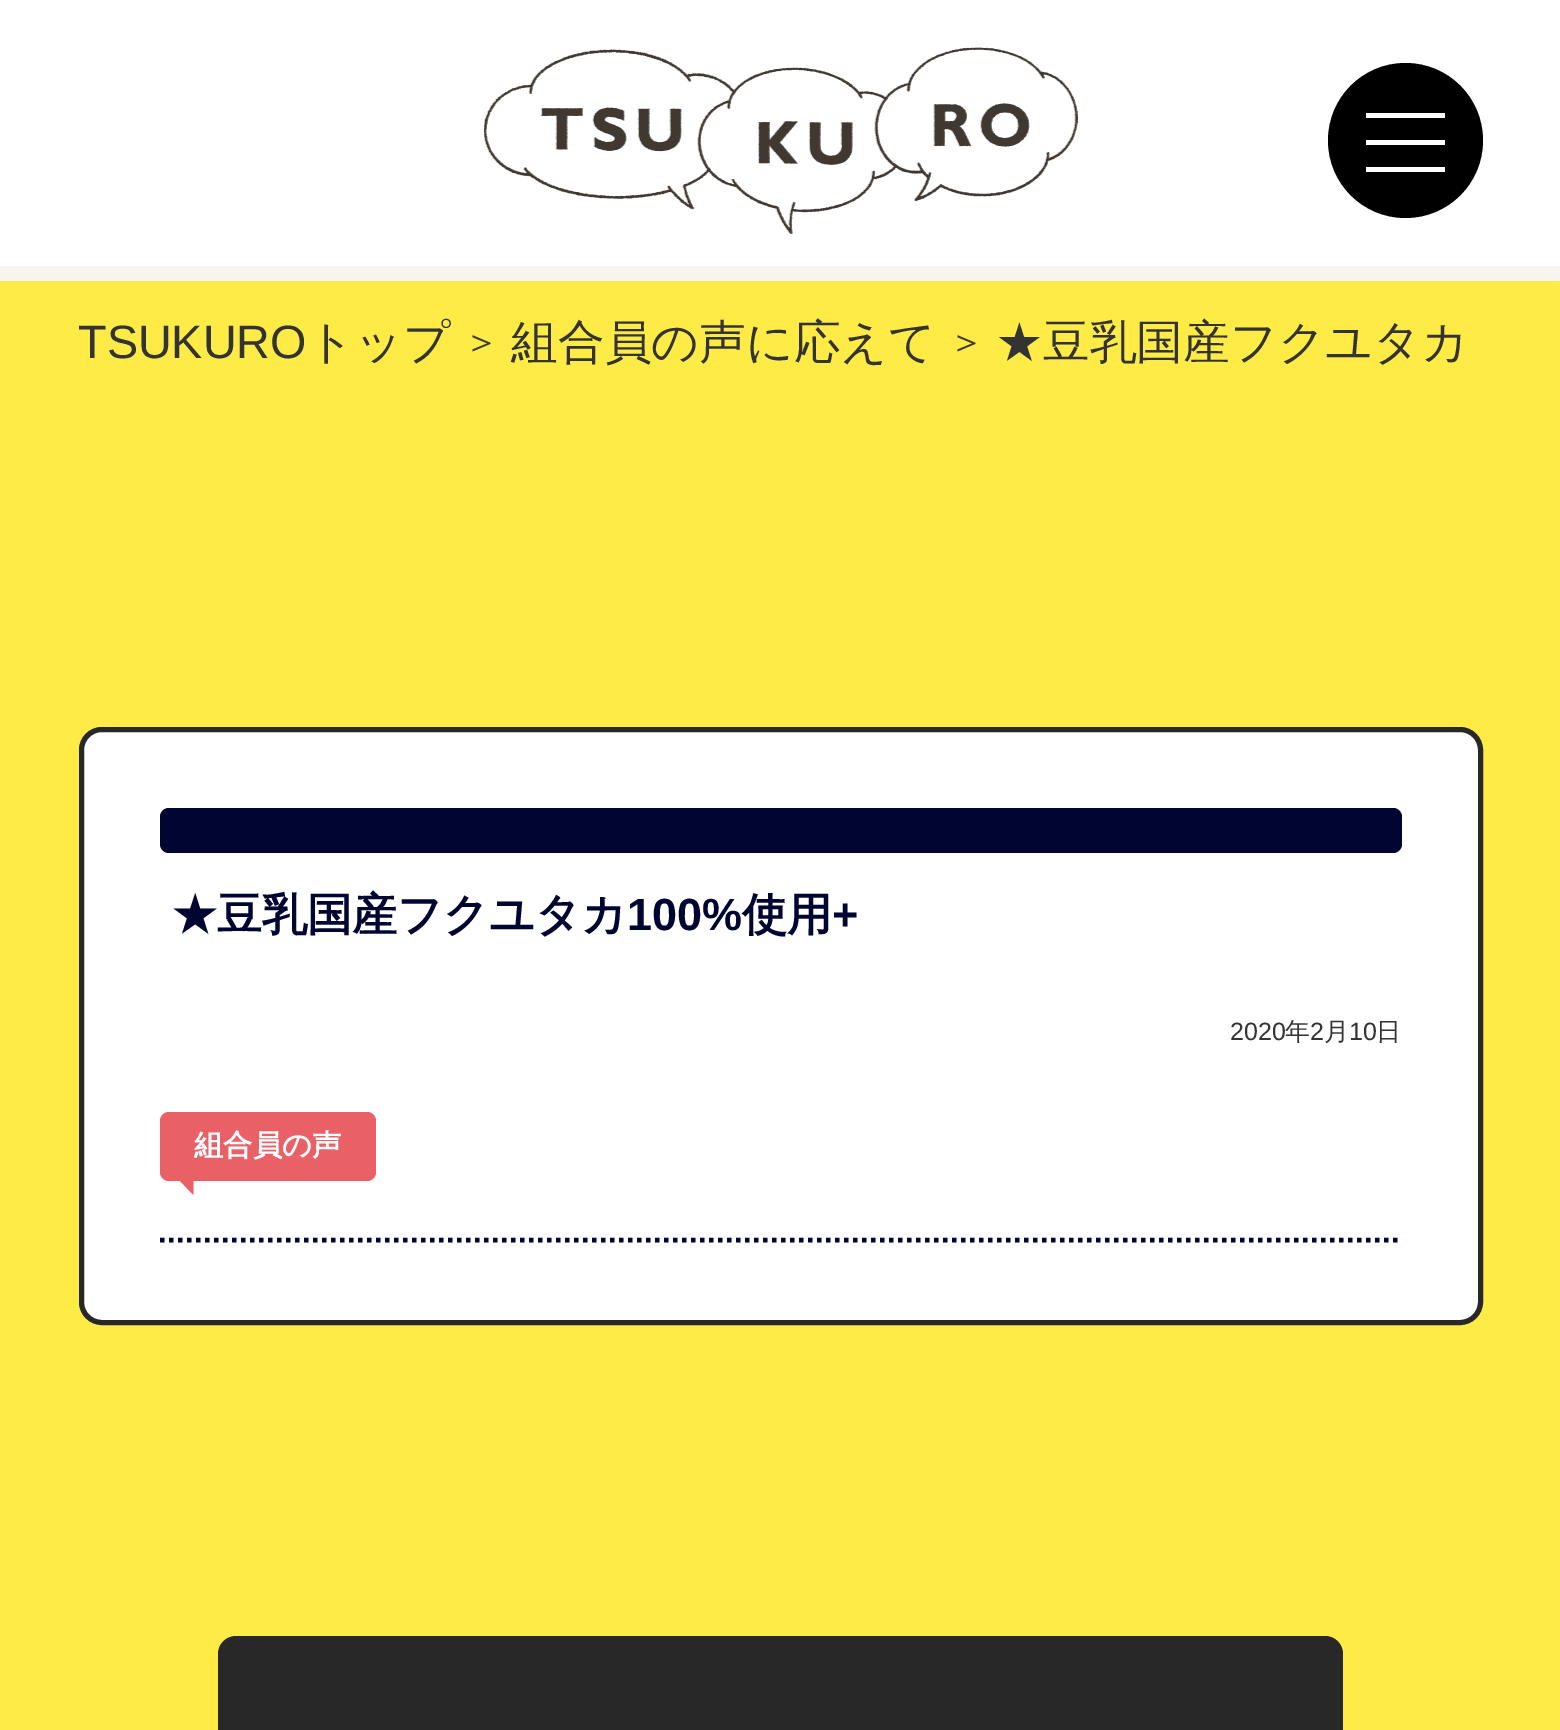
%!PS-Adobe-3.0
%%BoundingBox: 0 0 1560 1730
%%LanguageLevel: 3
%%Pages: 1
%%EndComments
%%BeginProlog
/m { moveto } bind def
/l { lineto } bind def
/h { closepath } bind def
/f { fill } bind def
/S { stroke } bind def
/q { gsave } bind def
/Q { grestore } bind def
/w { setlinewidth } bind def
/fn { [ exch dup neg 0 0 3 -1 roll 0 0 ] selectfont } def
/tx { moveto show } def
/bx { rectfill } def
/ci { newpath 0 360 arc closepath } def
/rr { 5 dict begin { /r /h /w /y /x } { exch def } forall
  x r add y moveto x w add y 2 copy h add r arct x w add y h add x 1 index r arct
  x y h add x y r arct x y 2 copy exch w add exch r arct closepath end } def
/im { 5 dict begin { /h /w /y /x /name } { exch def } forall
  gsave x y translate w h scale
  w h 8 [w 0 0 h 0 0] name (r) file false 3 colorimage grestore end } def
%%EndProlog
%%BeginSetup
<< /PageSize [1560 1730] >> setpagedevice
%%EndSetup
%%Page: 1 1
0 1730 translate 1 -1 scale
4 setmiterlimit
0.973 0.961 0.941 setrgbcolor
0 0 1560 1730 bx
1 setgray
0 0 1560 266 bx
(image0.raw) 484 47 594 187 im
0 setgray
1405.5 140.5 77.5 ci f
1 setgray
1366 140 79 5 bx
1366 113 79 5 bx
1366 167 79 5 bx
1 0.922 0.275 setrgbcolor
0 281 1560 1449 bx
/LiberationSans-Regular 46.75 fn
0.2 setgray
(TSUKURO) 78 358 tx
/WenQuanYiZenHei-Medium 46.75 fn
(トップ) 307 358 tx
/WenQuanYiZenHei-Medium 37 fn
0.251 0.227 0.2 setrgbcolor
463 354 m -14 0 (＞) ashow
/WenQuanYiZenHei-Medium 46.75 fn
0.2 setgray
(組合員の声に応えて) 511 358 tx
/WenQuanYiZenHei-Medium 37 fn
0.251 0.227 0.2 setrgbcolor
948 354 m -14 0 (＞) ashow
/WenQuanYiZenHei-Medium 46.75 fn
0.2 setgray
(★豆乳国産フクユタカ) 996 358 tx
1 setgray
81.5 729.5 1399 593 20.5 rr q f Q
0.157 setgray
5 w
S
0.004 0.02 0.196 setrgbcolor
160 808 1242 45 9 rr f
/WenQuanYiZenHei-Bold 45 fn
(★豆乳国産フクユタカ) 172 930 tx
/LiberationSans-Bold 45 fn
(100%) 627 930 tx
/WenQuanYiZenHei-Bold 45 fn
(使用) 742 930 tx
/LiberationSans-Bold 45 fn
(+) 832 930 tx
/LiberationSans-Regular 25 fn
0.2 setgray
(2020) 1230 1040 tx
/WenQuanYiZenHei-Medium 25 fn
(年) 1285 1040 tx
/LiberationSans-Regular 25 fn
(2) 1310 1040 tx
/WenQuanYiZenHei-Medium 25 fn
(月) 1324 1040 tx
/LiberationSans-Regular 25 fn
(10) 1349 1040 tx
/WenQuanYiZenHei-Medium 25 fn
(日) 1376 1040 tx
0.004 0.02 0.196 setrgbcolor
4.5 w
[4.5 4.5] 0 setdash
160 1240 m 1402 1240 l S
0.914 0.38 0.404 setrgbcolor
160 1112 216 69 9 rr f
/WenQuanYiZenHei-Bold 29.25 fn
1 setgray
(組合員の声) 194 1155 tx
0.914 0.38 0.404 setrgbcolor
180 1181 m 193.5 1181 l 193.5 1195 l h f
0.157 setgray
218 1636 1125 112 18 rr f
showpage
%%EOF
